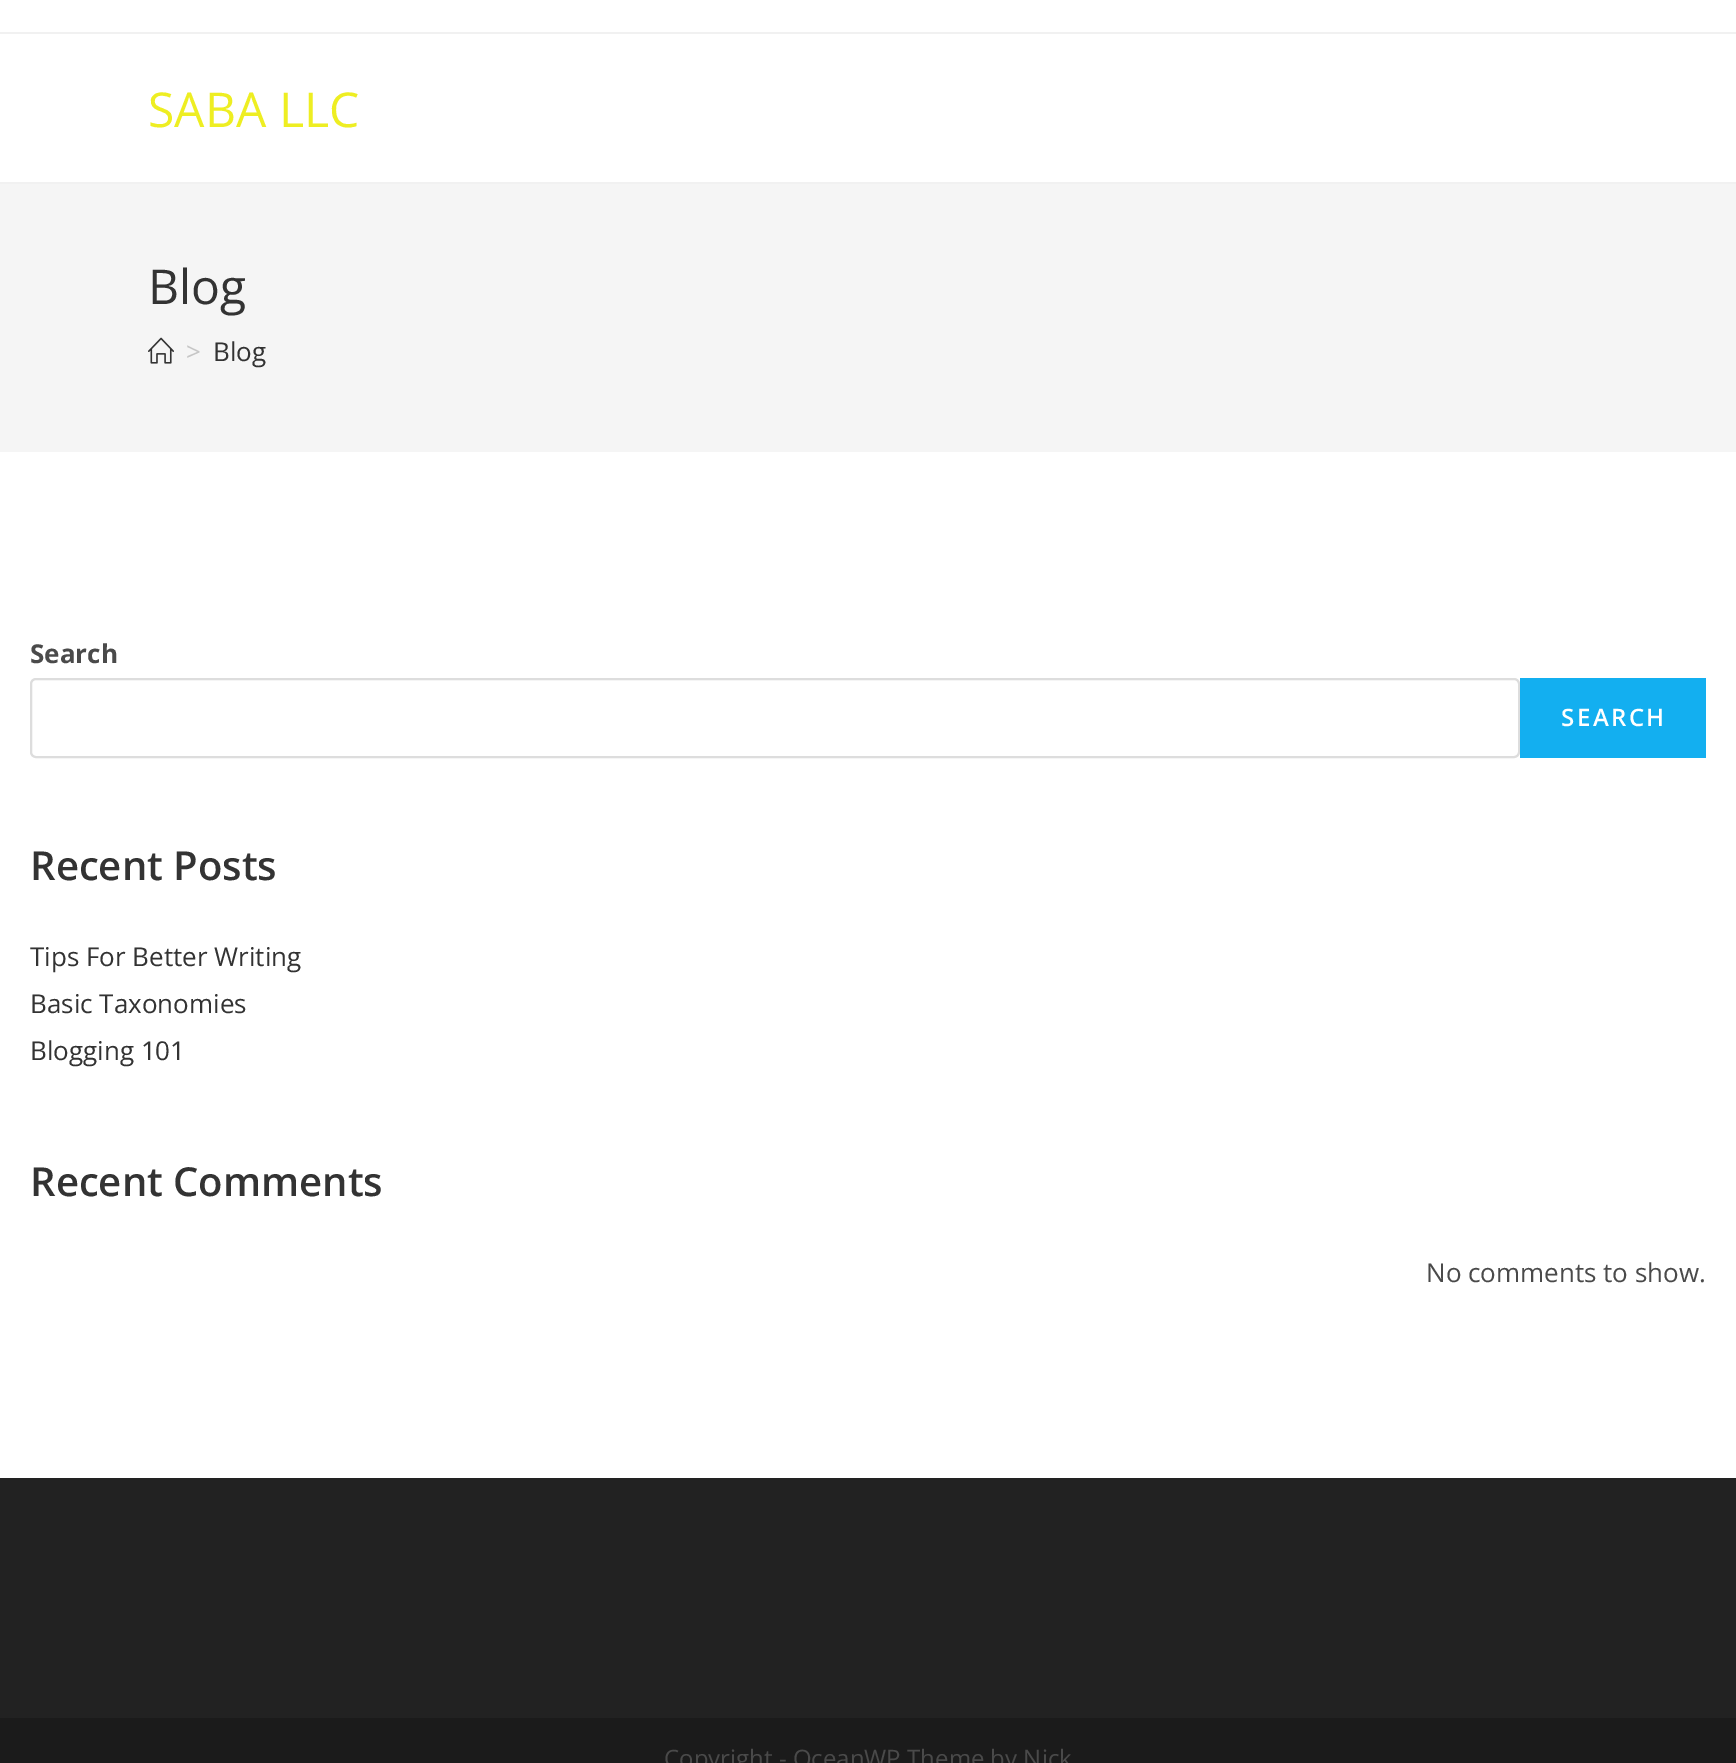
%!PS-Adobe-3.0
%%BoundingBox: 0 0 1736 1763
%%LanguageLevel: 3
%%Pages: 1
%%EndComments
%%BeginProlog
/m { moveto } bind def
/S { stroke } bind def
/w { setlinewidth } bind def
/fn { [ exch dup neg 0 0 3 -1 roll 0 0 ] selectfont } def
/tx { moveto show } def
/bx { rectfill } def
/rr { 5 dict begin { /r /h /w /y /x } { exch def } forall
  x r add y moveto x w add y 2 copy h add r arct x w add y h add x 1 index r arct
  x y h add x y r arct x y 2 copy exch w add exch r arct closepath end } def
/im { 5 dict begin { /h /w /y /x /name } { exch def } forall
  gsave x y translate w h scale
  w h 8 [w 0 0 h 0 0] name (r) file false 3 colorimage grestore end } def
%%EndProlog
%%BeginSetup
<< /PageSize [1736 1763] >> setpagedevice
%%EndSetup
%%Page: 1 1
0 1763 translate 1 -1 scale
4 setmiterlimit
1 setgray
0 0 1736 1763 bx
0.945 setgray
0 32 1736 2 bx
0 182 1736 2 bx
/OpenSans-Regular 48 fn
0.933 0.933 0.133 setrgbcolor
(SABA LLC) 148 127 tx
0.961 setgray
0 184 1736 268 bx
0.2 setgray
(Blog) 148 304 tx
(image0.raw) 148 337 26 27 im
/OpenSans-Regular 26 fn
0.776 setgray
(>) 186 361 tx
0.2 setgray
(Blog) 213 361 tx
/OpenSans-Bold 26 fn
0.29 setgray
(Search) 30 663 tx
0.867 setgray
2 w
31 679 1488 78 5 rr S
0.075 0.686 0.941 setrgbcolor
1520 678 186 80 bx
/OpenSans-SemiBold 24 fn
1 setgray
1561 726 m 2.5 0 (SEARCH) ashow
/OpenSans-SemiBold 40 fn
0.2 setgray
(Recent Posts) 30 880 tx
/OpenSans-Regular 26 fn
(Tips For Better Writing) 30 966 tx
(Basic Taxonomies) 30 1013 tx
(Blogging 101) 30 1060 tx
/OpenSans-SemiBold 40 fn
(Recent Comments) 30 1196 tx
/OpenSans-Regular 26 fn
0.29 setgray
(No comments to show.) 1426 1282 tx
0.133 setgray
0 1478 1736 240 bx
0.106 setgray
0 1718 1736 45 bx
/OpenSans-Regular 24 fn
0.29 setgray
(Copyright - OceanWP Theme by Nick) 664 1767 tx
showpage
%%EOF
